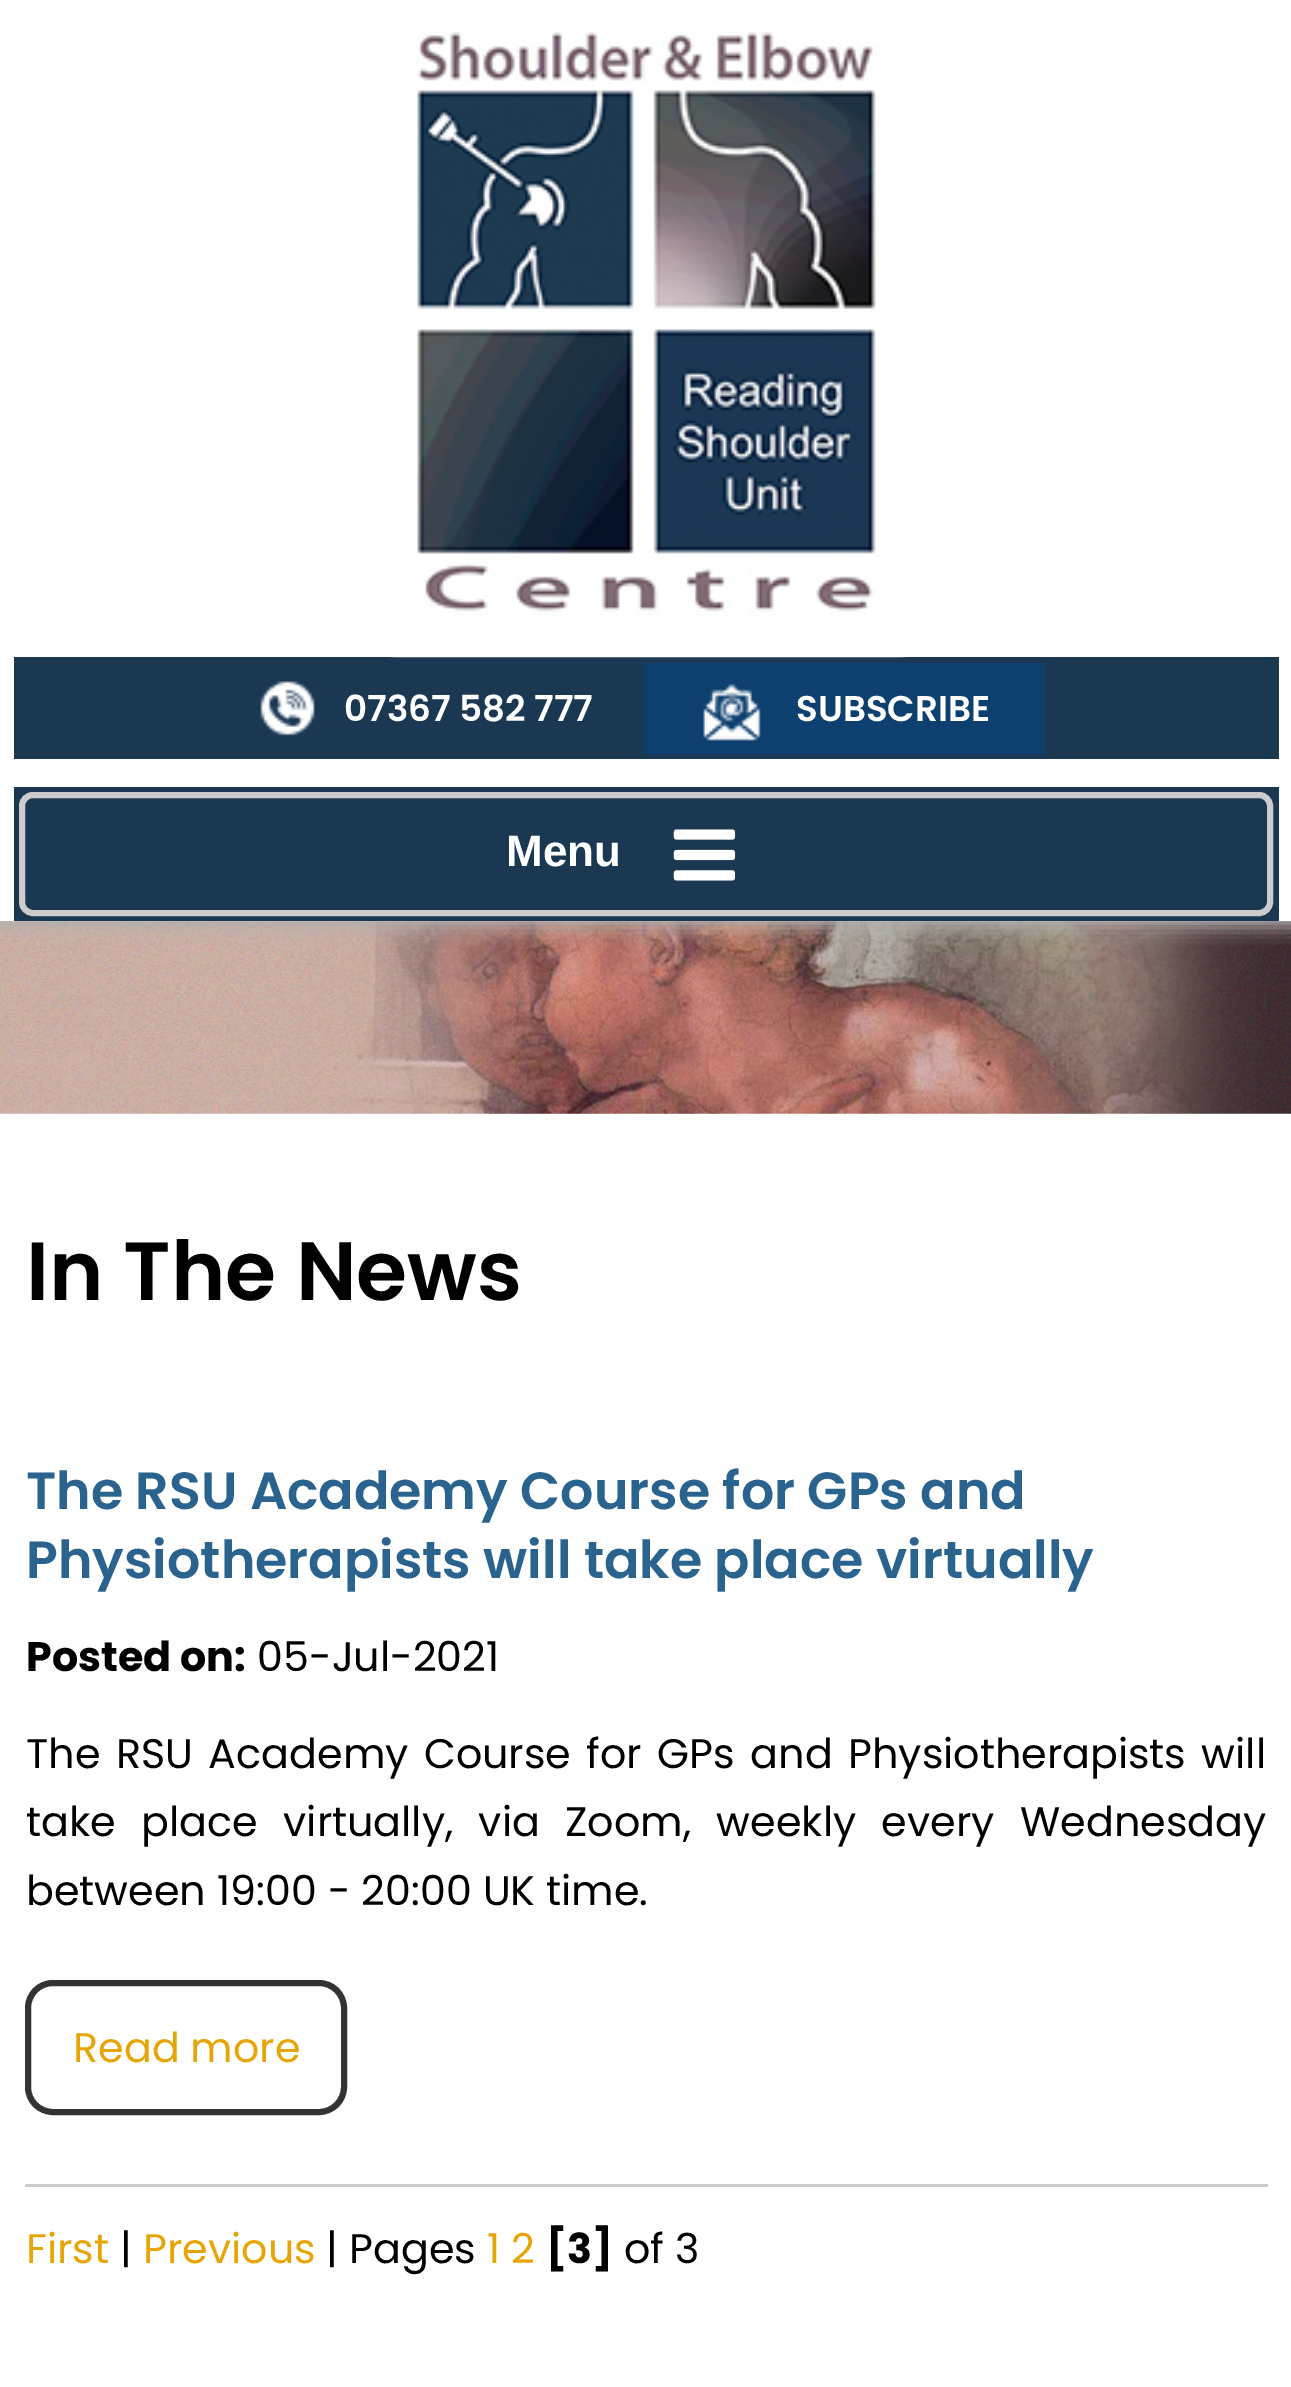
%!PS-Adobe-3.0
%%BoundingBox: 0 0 1291 2387
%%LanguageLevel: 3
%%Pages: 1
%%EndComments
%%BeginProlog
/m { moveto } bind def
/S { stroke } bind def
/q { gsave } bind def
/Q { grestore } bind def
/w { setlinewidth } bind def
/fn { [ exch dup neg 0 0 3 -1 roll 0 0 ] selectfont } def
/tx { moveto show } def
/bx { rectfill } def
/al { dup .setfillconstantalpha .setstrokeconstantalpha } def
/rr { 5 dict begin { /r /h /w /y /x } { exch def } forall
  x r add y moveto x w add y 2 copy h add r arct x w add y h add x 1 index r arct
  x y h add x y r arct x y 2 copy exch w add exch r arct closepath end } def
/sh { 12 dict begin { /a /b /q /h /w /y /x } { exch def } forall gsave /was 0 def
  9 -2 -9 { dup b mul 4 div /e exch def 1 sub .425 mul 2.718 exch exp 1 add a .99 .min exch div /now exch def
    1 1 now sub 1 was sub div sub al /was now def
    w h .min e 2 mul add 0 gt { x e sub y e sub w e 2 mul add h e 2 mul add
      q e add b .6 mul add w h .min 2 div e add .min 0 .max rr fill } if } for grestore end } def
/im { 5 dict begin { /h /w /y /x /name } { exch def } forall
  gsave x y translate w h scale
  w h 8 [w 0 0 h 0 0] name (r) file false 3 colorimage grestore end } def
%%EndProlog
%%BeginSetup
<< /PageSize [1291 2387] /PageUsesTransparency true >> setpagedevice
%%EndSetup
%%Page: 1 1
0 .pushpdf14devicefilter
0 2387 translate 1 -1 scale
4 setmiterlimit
1 setgray
0 0 1291 2387 bx
(image4.raw) 0 921 1291 193 im
q
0 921 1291 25 rectclip
0.706 0.702 0.698 setrgbcolor
-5 -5 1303 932 0 9.5 1 sh
Q
0.106 0.22 0.325 setrgbcolor
14 657 1265 102 bx
(image0.raw) 388 28 520 630 im
(image1.raw) 260 681 55 55 im
/Poppins-SemiBold 35.75 fn
1 setgray
(07367 582 777) 344 721 tx
0.055 0.251 0.435 setrgbcolor
644 663 401 91 bx
(image2.raw) 703 684 58 57 im
1 setgray
(SUBSCRIBE) 796 721 tx
0.106 0.22 0.325 setrgbcolor
14 787 1265 134 bx
0.8 setgray
6 w
22 795 1248 118 11 rr S
/LiberationSans-Bold 44 fn
1 setgray
(Menu) 506 866 tx
(image3.raw) 673 829 63 52 im
/Poppins-SemiBold 82.5 fn
0 setgray
(In The News) 26 1300 tx
0.8 setgray
25 2184 1243 3 bx
/Poppins-SemiBold 52.25 fn
0.161 0.388 0.557 setrgbcolor
(The RSU Academy Course for GPs and) 26 1509 tx
(Physiotherapists will take place virtually) 26 1578 tx
/Poppins-Bold 41.25 fn
0 setgray
(Posted on:) 26 1671 tx
/Poppins-Regular 41.25 fn
(05-Jul-2021) 257 1671 tx
26 1768 m 4.5 0 32 (The RSU Academy Course for GPs and Physiotherapists will) widthshow
26 1836 m 14.5 0 32 (take place virtually, via Zoom, weekly every Wednesday) widthshow
(between 19:00 - 20:00 UK time.) 26 1905 tx
0.2 setgray
28 1983 316 129 25 rr S
0.902 0.647 0.016 setrgbcolor
(Read more) 73 2062 tx
(First) 26 2263 tx
0 setgray
(|) 120 2263 tx
0.902 0.647 0.016 setrgbcolor
(Previous) 143 2263 tx
0 setgray
(| Pages) 326 2263 tx
0.902 0.647 0.016 setrgbcolor
(1 2) 487 2263 tx
/Poppins-Bold 41.25 fn
0 setgray
([3]) 546 2263 tx
/Poppins-Regular 41.25 fn
(of 3) 624 2263 tx
.poppdf14devicefilter showpage
%%EOF
